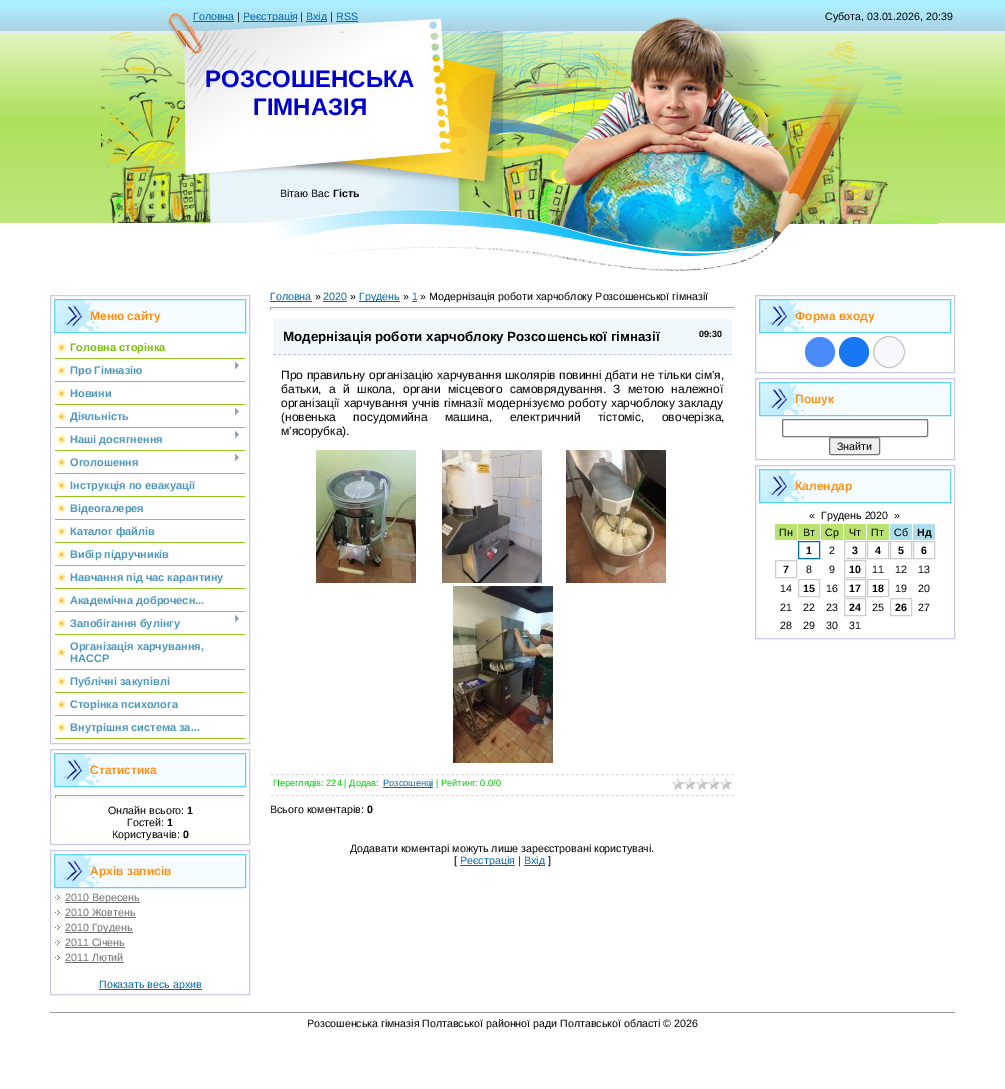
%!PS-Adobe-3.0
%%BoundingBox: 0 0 1005 1089
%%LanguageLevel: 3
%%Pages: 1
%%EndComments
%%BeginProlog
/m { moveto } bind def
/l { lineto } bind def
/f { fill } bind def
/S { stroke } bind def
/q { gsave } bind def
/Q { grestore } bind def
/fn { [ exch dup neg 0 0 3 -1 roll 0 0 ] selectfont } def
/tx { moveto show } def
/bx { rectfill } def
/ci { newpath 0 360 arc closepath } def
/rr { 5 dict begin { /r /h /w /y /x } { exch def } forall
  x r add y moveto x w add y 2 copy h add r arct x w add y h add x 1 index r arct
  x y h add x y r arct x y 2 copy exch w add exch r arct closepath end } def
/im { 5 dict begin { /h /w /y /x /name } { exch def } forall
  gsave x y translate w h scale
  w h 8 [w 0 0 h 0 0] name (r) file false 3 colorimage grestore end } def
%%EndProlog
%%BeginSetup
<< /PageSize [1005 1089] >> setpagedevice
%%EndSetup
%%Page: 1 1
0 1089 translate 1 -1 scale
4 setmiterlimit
1 setgray
0 0 1005 1089 bx
(image0.raw) 0 0 1005 223 im
(image1.raw) 100 8 838 263 im
/LiberationSans-Regular 10.65 fn
0 0.412 0.663 setrgbcolor
(Головна) 193 20 tx
193 21 41 1 bx
0 setgray
(|) 237 20 tx
0 0.412 0.663 setrgbcolor
243 21 54 1 bx
(Реєстрація) 243 20 tx
0 setgray
(|) 300 20 tx
0 0.412 0.663 setrgbcolor
306 21 21 1 bx
(Вхід) 306 20 tx
0 setgray
(|) 330 20 tx
0 0.412 0.663 setrgbcolor
(RSS) 336 20 tx
336 21 22 1 bx
0 setgray
(Субота, 03.01.2026, 20:39) 825 20 tx
/LiberationSans-Bold 24 fn
0 0 0.804 setrgbcolor
(РОЗСОШЕНСЬКА) 205 87 tx
(ГІМНАЗІЯ) 253 115 tx
/LiberationSans-Regular 10.65 fn
0 setgray
(Вітаю Вас) 280 197 tx
/LiberationSans-Bold 10.65 fn
(Гість) 333 197 tx
0.792 0.792 0.902 setrgbcolor
50.5 295.5 199 448 rectstroke
0.961 0.988 1 setrgbcolor
99 300 146 32 bx
(image2.raw) 55 300 44 32 im
0.357 0.82 0.988 setrgbcolor
54.5 299.5 191 33 rectstroke
/LiberationSans-Bold 12 fn
1 0.569 0.082 setrgbcolor
(Меню сайту) 90 320 tx
(image3.raw) 55 341 11 12 im
0.592 0.784 0.129 setrgbcolor
55 358 190 1 bx
/LiberationSans-Bold 11 fn
0.475 0.741 0.067 setrgbcolor
(Головна сторінка) 70 351 tx
(image3.raw) 55 364 11 12 im
0.592 0.784 0.129 setrgbcolor
55 381 190 1 bx
0.31 0.596 0.737 setrgbcolor
(Про Гімназію) 70 374 tx
(image4.raw) 235 362 4 7 im
(image3.raw) 55 387 11 12 im
0.592 0.784 0.129 setrgbcolor
55 404 190 1 bx
0.31 0.596 0.737 setrgbcolor
(Новини) 70 397 tx
(image3.raw) 55 410 11 12 im
0.592 0.784 0.129 setrgbcolor
55 427 190 1 bx
0.31 0.596 0.737 setrgbcolor
(Діяльність) 70 420 tx
(image4.raw) 235 408 4 7 im
(image3.raw) 55 433 11 12 im
0.592 0.784 0.129 setrgbcolor
55 450 190 1 bx
0.31 0.596 0.737 setrgbcolor
(Наші досягнення) 70 443 tx
(image4.raw) 235 431 4 7 im
(image3.raw) 55 456 11 12 im
0.592 0.784 0.129 setrgbcolor
55 473 190 1 bx
0.31 0.596 0.737 setrgbcolor
(Оголошення) 70 466 tx
(image4.raw) 235 454 4 7 im
(image3.raw) 55 479 11 12 im
0.592 0.784 0.129 setrgbcolor
55 496 190 1 bx
0.31 0.596 0.737 setrgbcolor
(Інструкція по евакуації) 70 489 tx
(image3.raw) 55 502 11 12 im
0.592 0.784 0.129 setrgbcolor
55 519 190 1 bx
0.31 0.596 0.737 setrgbcolor
(Відеогалерея) 70 512 tx
(image3.raw) 55 525 11 12 im
0.592 0.784 0.129 setrgbcolor
55 542 190 1 bx
0.31 0.596 0.737 setrgbcolor
(Каталог файлів) 70 535 tx
(image3.raw) 55 548 11 12 im
0.592 0.784 0.129 setrgbcolor
55 565 190 1 bx
0.31 0.596 0.737 setrgbcolor
(Вибір підручників) 70 558 tx
(image3.raw) 55 571 11 12 im
0.592 0.784 0.129 setrgbcolor
55 588 190 1 bx
0.31 0.596 0.737 setrgbcolor
(Навчання під час карантину) 70 581 tx
(image3.raw) 55 594 11 12 im
0.592 0.784 0.129 setrgbcolor
55 611 190 1 bx
0.31 0.596 0.737 setrgbcolor
(Академічна доброчесн...) 70 604 tx
(image3.raw) 55 617 11 12 im
0.592 0.784 0.129 setrgbcolor
55 634 190 1 bx
0.31 0.596 0.737 setrgbcolor
(Запобігання булінгу) 70 627 tx
(image4.raw) 235 615 4 7 im
(image3.raw) 55 646 11 12 im
0.592 0.784 0.129 setrgbcolor
55 669 190 1 bx
0.31 0.596 0.737 setrgbcolor
(Організація харчування,) 70 650 tx
(НАССР) 70 662 tx
(image3.raw) 55 675 11 12 im
0.592 0.784 0.129 setrgbcolor
55 692 190 1 bx
0.31 0.596 0.737 setrgbcolor
(Публічні закупівлі) 70 685 tx
(image3.raw) 55 698 11 12 im
0.592 0.784 0.129 setrgbcolor
55 715 190 1 bx
0.31 0.596 0.737 setrgbcolor
(Сторінка психолога) 70 708 tx
(image3.raw) 55 721 11 12 im
0.592 0.784 0.129 setrgbcolor
55 738 190 1 bx
0.31 0.596 0.737 setrgbcolor
(Внутрішня система за...) 70 731 tx
0.792 0.792 0.902 setrgbcolor
50.5 749.5 199 95 rectstroke
0.961 0.988 1 setrgbcolor
99 754 146 32 bx
(image2.raw) 55 754 44 32 im
0.357 0.82 0.988 setrgbcolor
54.5 753.5 191 33 rectstroke
/LiberationSans-Bold 12 fn
1 0.569 0.082 setrgbcolor
(Статистика) 90 774 tx
0.624 setgray
55 795 190 1 bx
0.933 setgray
244 795 1 3 bx
55 797 190 1 bx
0.624 setgray
55 795 1 3 bx
/LiberationSans-Regular 10.65 fn
0 setgray
(Онлайн всього:) 108 814 tx
/LiberationSans-Bold 10.65 fn
(1) 187 814 tx
/LiberationSans-Regular 10.65 fn
(Гостей:) 127 826 tx
/LiberationSans-Bold 10.65 fn
(1) 167 826 tx
/LiberationSans-Regular 10.65 fn
(Користувачів:) 112 838 tx
/LiberationSans-Bold 10.65 fn
(0) 183 838 tx
0.792 0.792 0.902 setrgbcolor
50.5 850.5 199 144 rectstroke
0.961 0.988 1 setrgbcolor
99 855 146 32 bx
(image2.raw) 55 855 44 32 im
0.357 0.82 0.988 setrgbcolor
54.5 854.5 191 33 rectstroke
/LiberationSans-Bold 12 fn
1 0.569 0.082 setrgbcolor
(Архів записів) 90 875 tx
(image5.raw) 55 895 5 5 im
0.431 setgray
65 902 75 1 bx
/LiberationSans-Regular 10.65 fn
(2010 Вересень) 65 901 tx
(image5.raw) 55 910 5 5 im
(2010 Жовтень) 65 916 tx
65 917 71 1 bx
(image5.raw) 55 925 5 5 im
65 932 68 1 bx
(2010 Грудень) 65 931 tx
(image5.raw) 55 940 5 5 im
(2011 Січень) 65 946 tx
65 947 60 1 bx
(image5.raw) 55 955 5 5 im
(2011 Лютий) 65 961 tx
65 962 59 1 bx
0 0.412 0.663 setrgbcolor
99 989 103 1 bx
(Показать весь архив) 99 988 tx
(Головна) 270 300 tx
270 301 42 1 bx
0 setgray
(») 315 300 tx
0 0.412 0.663 setrgbcolor
(2020) 323 300 tx
323 301 24 1 bx
0 setgray
(») 350 300 tx
0 0.412 0.663 setrgbcolor
359 301 41 1 bx
(Грудень) 359 300 tx
0 setgray
(») 403 300 tx
0 0.412 0.663 setrgbcolor
(1) 412 300 tx
412 301 5 1 bx
0 setgray
(» Модернізація роботи харчоблоку Розсошенської гімназії) 420 300 tx
0.624 setgray
270 307 465 1 bx
0.933 setgray
734 307 1 3 bx
270 309 465 1 bx
0.624 setgray
270 307 1 3 bx
0.945 0.973 0.984 setrgbcolor
273 319 459 36 bx
0.796 0.796 0.902 setrgbcolor
[3 2.01] 0 setdash
273 354.5 m 732 354.5 l S
/LiberationSans-Bold 13.3 fn
0 setgray
(Модернізація роботи харчоблоку Розсошенської гімназії) 283 341 tx
/LiberationSans-Bold 9 fn
(09:30) 699 337 tx
/LiberationSans-Regular 12 fn
281 379 m 0.25 0 32 (Про правильну організацію харчування школярів повинні дбати не тільки сім'я,) widthshow
281 393 m 4 0 32 (батьки, а й школа, органи місцевого самоврядування. З метою належної) widthshow
281 407 m 0.5 0 32 (організації харчування учнів гімназії модернізуємо роботу харчоблоку закладу) widthshow
281 421 m 14 0 32 (\(новенька посудомийна машина, електричний тістоміс, овочерізка,) widthshow
(м'ясорубка\).) 281 435 tx
(image6.raw) 316 450 100 133 im
(image7.raw) 442 450 100 133 im
(image8.raw) 566 450 100 133 im
(image9.raw) 453 586 100 177 im
0.867 setgray
[3 2] 0 setdash
271 774.5 m 734 774.5 l S
271 795.5 m 734 795.5 l S
/LiberationSans-Regular 9.25 fn
0 0.8 0 setrgbcolor
(Переглядів: 224 | Додав:) 273 786 tx
0 0.412 0.663 setrgbcolor
383 787 50 1 bx
(Розсошенці) 383 786 tx
0 0.8 0 setrgbcolor
(| Рейтинг: 0.0/0) 436 786 tx
(image10.raw) 672 778 60 12 im
/LiberationSans-Regular 10.65 fn
0 setgray
(Всього коментарів:) 270 813 tx
/LiberationSans-Bold 10.65 fn
(0) 367 813 tx
/LiberationSans-Regular 10.65 fn
(Додавати коментарі можуть лише зареєстровані користувачі.) 350 852 tx
([) 454 864 tx
0 0.412 0.663 setrgbcolor
460 865 55 1 bx
(Реєстрація) 460 864 tx
0 setgray
(|) 518 864 tx
0 0.412 0.663 setrgbcolor
524 865 21 1 bx
(Вхід) 524 864 tx
0 setgray
(]) 548 864 tx
0.792 0.792 0.902 setrgbcolor
[] 0 setdash
755.5 295.5 199 77 rectstroke
0.961 0.988 1 setrgbcolor
804 300 146 32 bx
(image2.raw) 760 300 44 32 im
0.357 0.82 0.988 setrgbcolor
759.5 299.5 191 33 rectstroke
/LiberationSans-Bold 12 fn
1 0.569 0.082 setrgbcolor
(Форма входу) 795 320 tx
0.286 0.545 0.98 setrgbcolor
820 352 15 ci f
0.094 0.467 0.949 setrgbcolor
854 352 15 ci f
0.973 0.973 0.988 setrgbcolor
889 352 15.5 ci q f Q
0.769 setgray
S
0.792 0.792 0.902 setrgbcolor
755.5 378.5 199 81 rectstroke
0.961 0.988 1 setrgbcolor
804 383 146 32 bx
(image2.raw) 760 383 44 32 im
0.357 0.82 0.988 setrgbcolor
759.5 382.5 191 33 rectstroke
1 0.569 0.082 setrgbcolor
(Пошук) 795 403 tx
0.463 setgray
782.5 419.5 145 17 1.5 rr S
0.937 setgray
829.5 437.5 50 17 1.5 rr q f Q
0.463 setgray
S
/LiberationSans-Regular 10.65 fn
0 setgray
(Знайти) 837 450 tx
0.792 0.792 0.902 setrgbcolor
755.5 465.5 199 173 rectstroke
0.961 0.988 1 setrgbcolor
804 470 146 32 bx
(image2.raw) 760 470 44 32 im
0.357 0.82 0.988 setrgbcolor
759.5 469.5 191 33 rectstroke
/LiberationSans-Bold 12 fn
1 0.569 0.082 setrgbcolor
(Календар) 795 490 tx
/LiberationSans-Regular 10.65 fn
0 setgray
(«) 809 519 tx
(Грудень 2020) 821 519 tx
(») 894 519 tx
0.718 0.89 0.431 setrgbcolor
775 524 22 16 bx
0 setgray
(Пн) 779 536 tx
0.718 0.89 0.431 setrgbcolor
798 524 22 16 bx
0 setgray
(Вт) 803 536 tx
0.718 0.89 0.431 setrgbcolor
821 524 22 16 bx
0 setgray
(Ср) 825 536 tx
0.718 0.89 0.431 setrgbcolor
844 524 22 16 bx
0 setgray
(Чт) 849 536 tx
0.718 0.89 0.431 setrgbcolor
867 524 22 16 bx
0 setgray
(Пт) 871 536 tx
0.675 0.871 0.933 setrgbcolor
890 524 22 16 bx
0 setgray
(Сб) 894 536 tx
0.675 0.871 0.933 setrgbcolor
913 524 22 16 bx
/LiberationSans-Bold 10.65 fn
0 setgray
(Нд) 917 536 tx
0.004 0.431 0.678 setrgbcolor
798.5 541.5 21 17 rectstroke
0 setgray
(1) 806 554 tx
/LiberationSans-Regular 10.65 fn
(2) 829 554 tx
0.8 setgray
844.5 541.5 21 17 rectstroke
/LiberationSans-Bold 10.65 fn
0 setgray
(3) 852 554 tx
0.8 setgray
867.5 541.5 21 17 rectstroke
0 setgray
(4) 875 554 tx
0.8 setgray
890.5 541.5 21 17 rectstroke
0 setgray
(5) 898 554 tx
0.8 setgray
913.5 541.5 21 17 rectstroke
0 setgray
(6) 921 554 tx
0.8 setgray
775.5 560.5 21 17 rectstroke
0 setgray
(7) 783 573 tx
/LiberationSans-Regular 10.65 fn
(8) 806 573 tx
(9) 829 573 tx
0.8 setgray
844.5 560.5 21 17 rectstroke
/LiberationSans-Bold 10.65 fn
0 setgray
(10) 849 573 tx
/LiberationSans-Regular 10.65 fn
(11) 872 573 tx
(12) 895 573 tx
(13) 918 573 tx
(14) 780 592 tx
0.8 setgray
798.5 579.5 21 17 rectstroke
/LiberationSans-Bold 10.65 fn
0 setgray
(15) 803 592 tx
/LiberationSans-Regular 10.65 fn
(16) 826 592 tx
0.8 setgray
844.5 579.5 21 17 rectstroke
/LiberationSans-Bold 10.65 fn
0 setgray
(17) 849 592 tx
0.8 setgray
867.5 579.5 21 17 rectstroke
0 setgray
(18) 872 592 tx
/LiberationSans-Regular 10.65 fn
(19) 895 592 tx
(20) 918 592 tx
(21) 780 611 tx
(22) 803 611 tx
(23) 826 611 tx
0.8 setgray
844.5 598.5 21 17 rectstroke
/LiberationSans-Bold 10.65 fn
0 setgray
(24) 849 611 tx
/LiberationSans-Regular 10.65 fn
(25) 872 611 tx
0.8 setgray
890.5 598.5 21 17 rectstroke
/LiberationSans-Bold 10.65 fn
0 setgray
(26) 895 611 tx
/LiberationSans-Regular 10.65 fn
(27) 918 611 tx
(28) 780 629 tx
(29) 803 629 tx
(30) 826 629 tx
(31) 849 629 tx
0.6 setgray
50 1012 905 1 bx
0 setgray
(Розсошенська гімназія Полтавської районної ради Полтавської області © 2026) 307 1027 tx
showpage
%%EOF
